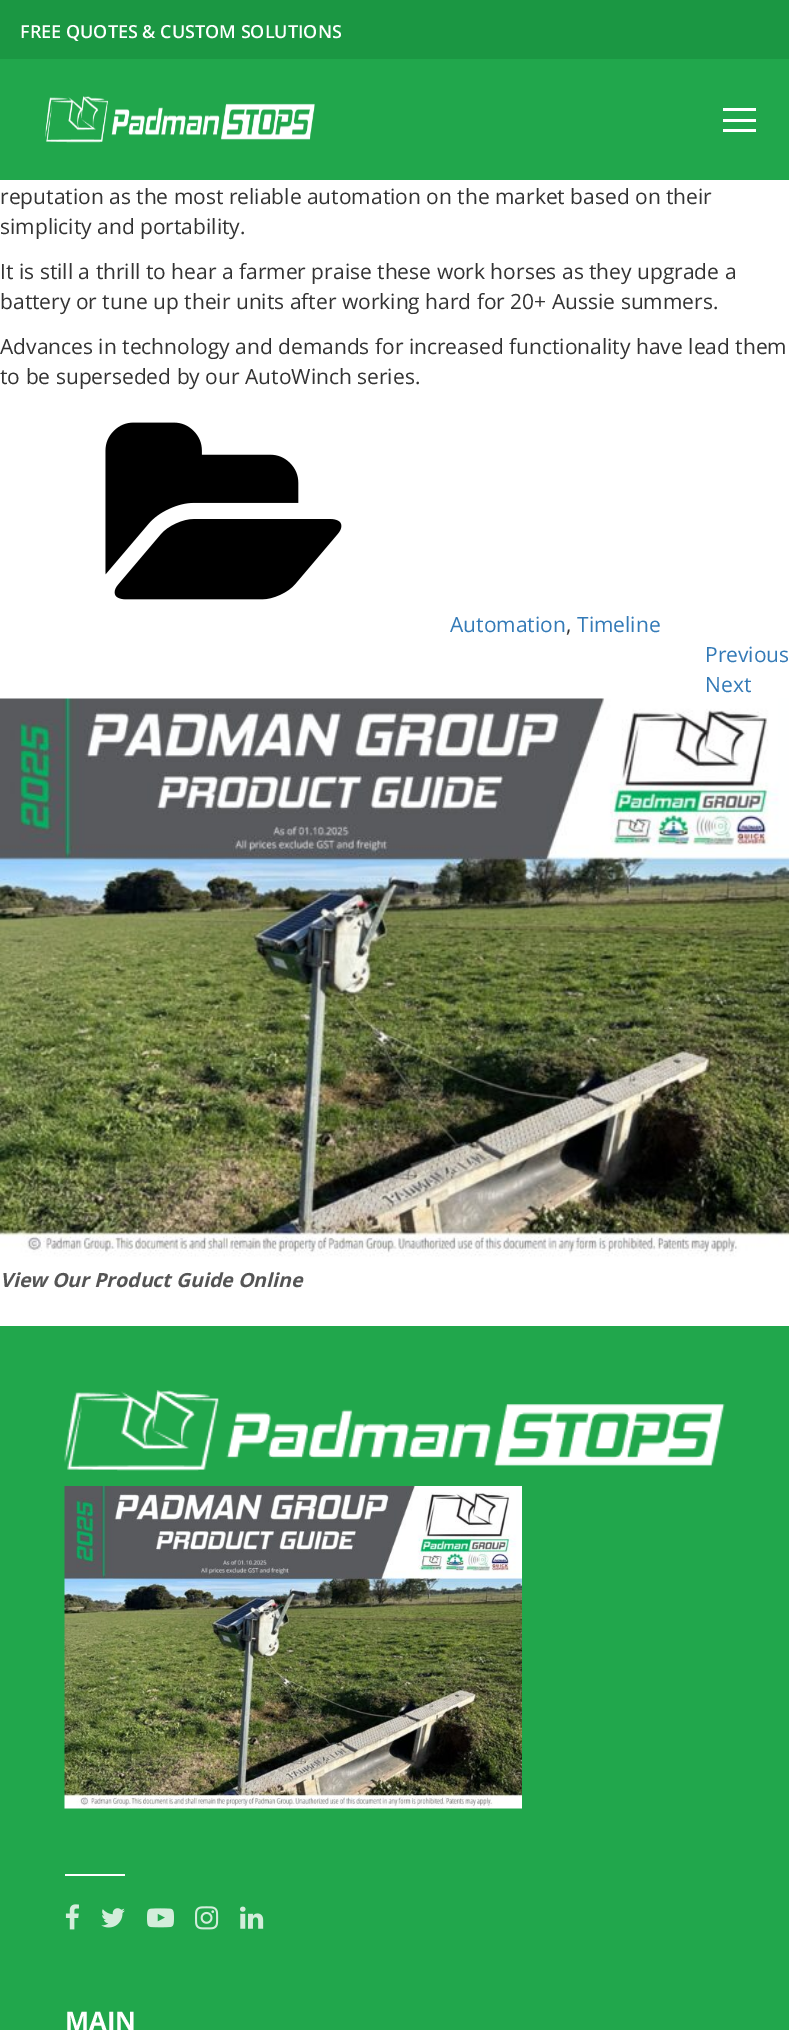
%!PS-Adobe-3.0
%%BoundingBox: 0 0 789 2030
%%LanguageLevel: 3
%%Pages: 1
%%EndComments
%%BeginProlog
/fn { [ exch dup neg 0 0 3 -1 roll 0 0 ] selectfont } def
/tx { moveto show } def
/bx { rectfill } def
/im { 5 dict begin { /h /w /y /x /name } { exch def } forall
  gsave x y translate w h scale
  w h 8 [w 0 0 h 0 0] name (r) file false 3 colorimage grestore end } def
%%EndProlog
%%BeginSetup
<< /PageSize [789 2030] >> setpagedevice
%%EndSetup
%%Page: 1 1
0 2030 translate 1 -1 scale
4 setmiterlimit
1 setgray
0 0 789 2030 bx
0.106 0.592 0.263 setrgbcolor
0 0 789 59 bx
/OpenSans-SemiBold 18 fn
1 setgray
(FREE QUOTES & CUSTOM SOLUTIONS) 20 38 tx
0.129 0.655 0.298 setrgbcolor
0 59 789 121 bx
(image0.raw) 45 96 270 47 im
1 setgray
723 119 33 3 bx
723 108 33 3 bx
723 129 33 3 bx
/OpenSans-Regular 21 fn
0.2 setgray
(reputation as the most reliable automation on the market based on their) 0 204 tx
(simplicity and portability.) 0 234 tx
(It is still a thrill to hear a farmer praise these work horses as they upgrade a) 0 279 tx
(battery or tune up their units after working hard for 20+ Aussie summers.) 0 309 tx
(Advances in technology and demands for increased functionality have lead them) 0 354 tx
(to be superseded by our AutoWinch series.) 0 384 tx
(image1.raw) 105 422 237 178 im
0.2 0.478 0.718 setrgbcolor
(Automation) 450 632 tx
0.2 setgray
(,) 566 632 tx
0.2 0.478 0.718 setrgbcolor
(Timeline) 577 632 tx
(Previous) 705 662 tx
(Next) 705 692 tx
(image2.raw) 0 698 789 559 im
/OpenSans-BoldItalic 19.5 fn
0.333 setgray
(View Our Product Guide Online) 0 1287 tx
0.129 0.655 0.298 setrgbcolor
0 1326 789 704 bx
(image3.raw) 64 1390 661 81 im
(image4.raw) 64 1486 458 323 im
1 setgray
65 1874 60 2 bx
(image5.raw) 65 1904 14 26 im
(image6.raw) 101 1908 24 20 im
(image7.raw) 147 1908 27 20 im
(image8.raw) 195 1906 24 24 im
(image9.raw) 240 1906 24 23 im
/OpenSans-Bold 25.5 fn
(MAIN) 65 2030 tx
showpage
%%EOF
